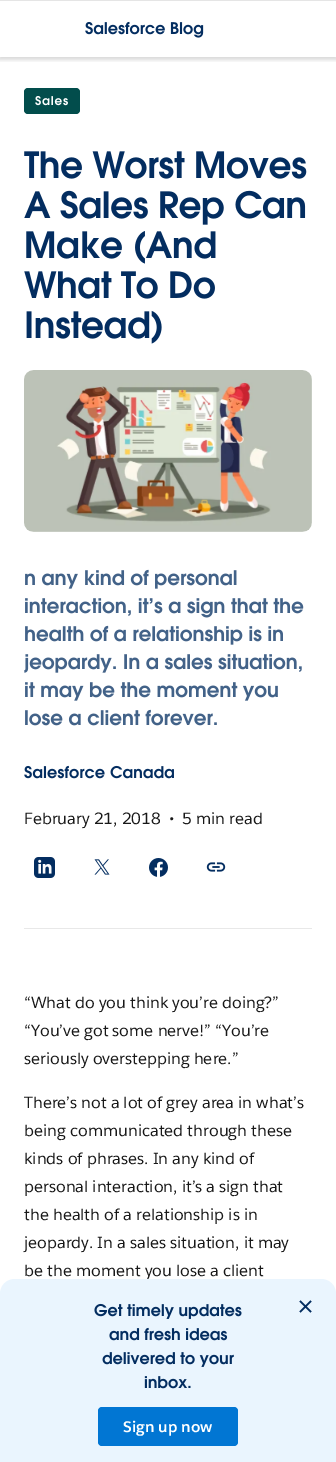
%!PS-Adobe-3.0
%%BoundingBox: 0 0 336 1462
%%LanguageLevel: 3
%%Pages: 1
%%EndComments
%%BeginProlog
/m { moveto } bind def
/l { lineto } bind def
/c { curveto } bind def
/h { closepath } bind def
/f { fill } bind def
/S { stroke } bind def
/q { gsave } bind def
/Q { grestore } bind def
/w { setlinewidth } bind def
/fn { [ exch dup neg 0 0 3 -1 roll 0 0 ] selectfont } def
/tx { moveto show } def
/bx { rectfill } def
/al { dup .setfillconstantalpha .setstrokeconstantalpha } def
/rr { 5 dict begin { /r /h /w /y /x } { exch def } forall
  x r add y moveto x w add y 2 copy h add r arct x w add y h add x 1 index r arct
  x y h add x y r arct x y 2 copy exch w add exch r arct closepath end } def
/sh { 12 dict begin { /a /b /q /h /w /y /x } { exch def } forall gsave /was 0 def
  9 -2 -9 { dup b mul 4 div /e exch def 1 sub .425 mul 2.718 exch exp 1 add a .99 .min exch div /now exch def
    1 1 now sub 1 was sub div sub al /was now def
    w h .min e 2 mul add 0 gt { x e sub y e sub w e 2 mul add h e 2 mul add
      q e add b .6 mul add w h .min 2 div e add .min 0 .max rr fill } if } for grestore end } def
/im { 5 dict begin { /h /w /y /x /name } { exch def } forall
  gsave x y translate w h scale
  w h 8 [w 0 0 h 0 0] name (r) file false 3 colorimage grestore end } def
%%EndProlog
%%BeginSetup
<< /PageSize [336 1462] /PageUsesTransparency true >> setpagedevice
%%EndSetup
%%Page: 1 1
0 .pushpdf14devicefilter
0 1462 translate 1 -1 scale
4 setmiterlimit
1 setgray
0 0 336 1462 bx
q
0 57 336 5 rectclip
0.094 setgray
-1 1 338 59 0 2 0.16 sh
Q
0.898 setgray
0 0 336 1 bx
(image0.raw) 85 21 119 17 im
0.008 0.302 0.298 setrgbcolor
24 88 56 26 4 rr f
(image1.raw) 35 96 33 10 im
(image2.raw) 24 151 283 28 im
(image3.raw) 24 190 282 35 im
(image4.raw) 26 231 190 33 im
(image5.raw) 24 271 191 28 im
(image6.raw) 26 310 136 34 im
(image7.raw) 24 370 288 162 im
(image8.raw) 25 569 212 20 im
(image9.raw) 25 598 279 20 im
(image10.raw) 25 625 258 20 im
(image11.raw) 24 654 278 19 im
(image12.raw) 25 682 253 19 im
(image13.raw) 25 709 192 17 im
(image14.raw) 24 765 81 14 im
(image15.raw) 110 765 64 14 im
/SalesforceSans-Regular 16 fn
0.094 setgray
(February 21, 2018) 24 824 tx
(•) 169 824 tx
(5 min read) 182 824 tx
0.91 setgray
24 928 288 1 bx
(image16.raw) 34 857 21 21 im
(image17.raw) 94 859 16 16 im
(image18.raw) 149 858 19 19 im
(image19.raw) 206 862 20 10 im
0.094 setgray
(“What do you think you’re doing?”) 24 1008 tx
(“You’ve got some nerve!” “You’re) 24 1036 tx
(seriously overstepping here.”) 24 1064 tx
(There’s not a lot of grey area in what’s) 24 1108 tx
(being communicated through these) 24 1136 tx
(kinds of phrases. In any kind of) 24 1164 tx
(personal interaction, it’s a sign that) 24 1192 tx
(the health of a relationship is in) 24 1220 tx
(jeopardy. In a sales situation, it may) 24 1248 tx
(be the moment you lose a client) 24 1276 tx
0.918 0.961 0.996 setrgbcolor
15 1279 m 321 1279 l 329.5 1279 336 1285.5 336 1294 c 336 1462 l 0 1462 l 0 1294 l 0 1285.5 6.5 1279 15 1279 c h f
0.012 0.176 0.376 setrgbcolor
1.7 w
300 1301 m 311 1312 l 311 1301 m 300 1312 l S
(image20.raw) 94 1303 148 16 im
(image21.raw) 109 1327 119 14 im
(image22.raw) 102 1352 132 15 im
(image23.raw) 144 1376 47 13 im
0.004 0.463 0.827 setrgbcolor
98 1407 140 39 4 rr f
/SalesforceSans-Bold 15 fn
1 setgray
(Sign up now) 123 1432 tx
.poppdf14devicefilter showpage
%%EOF
